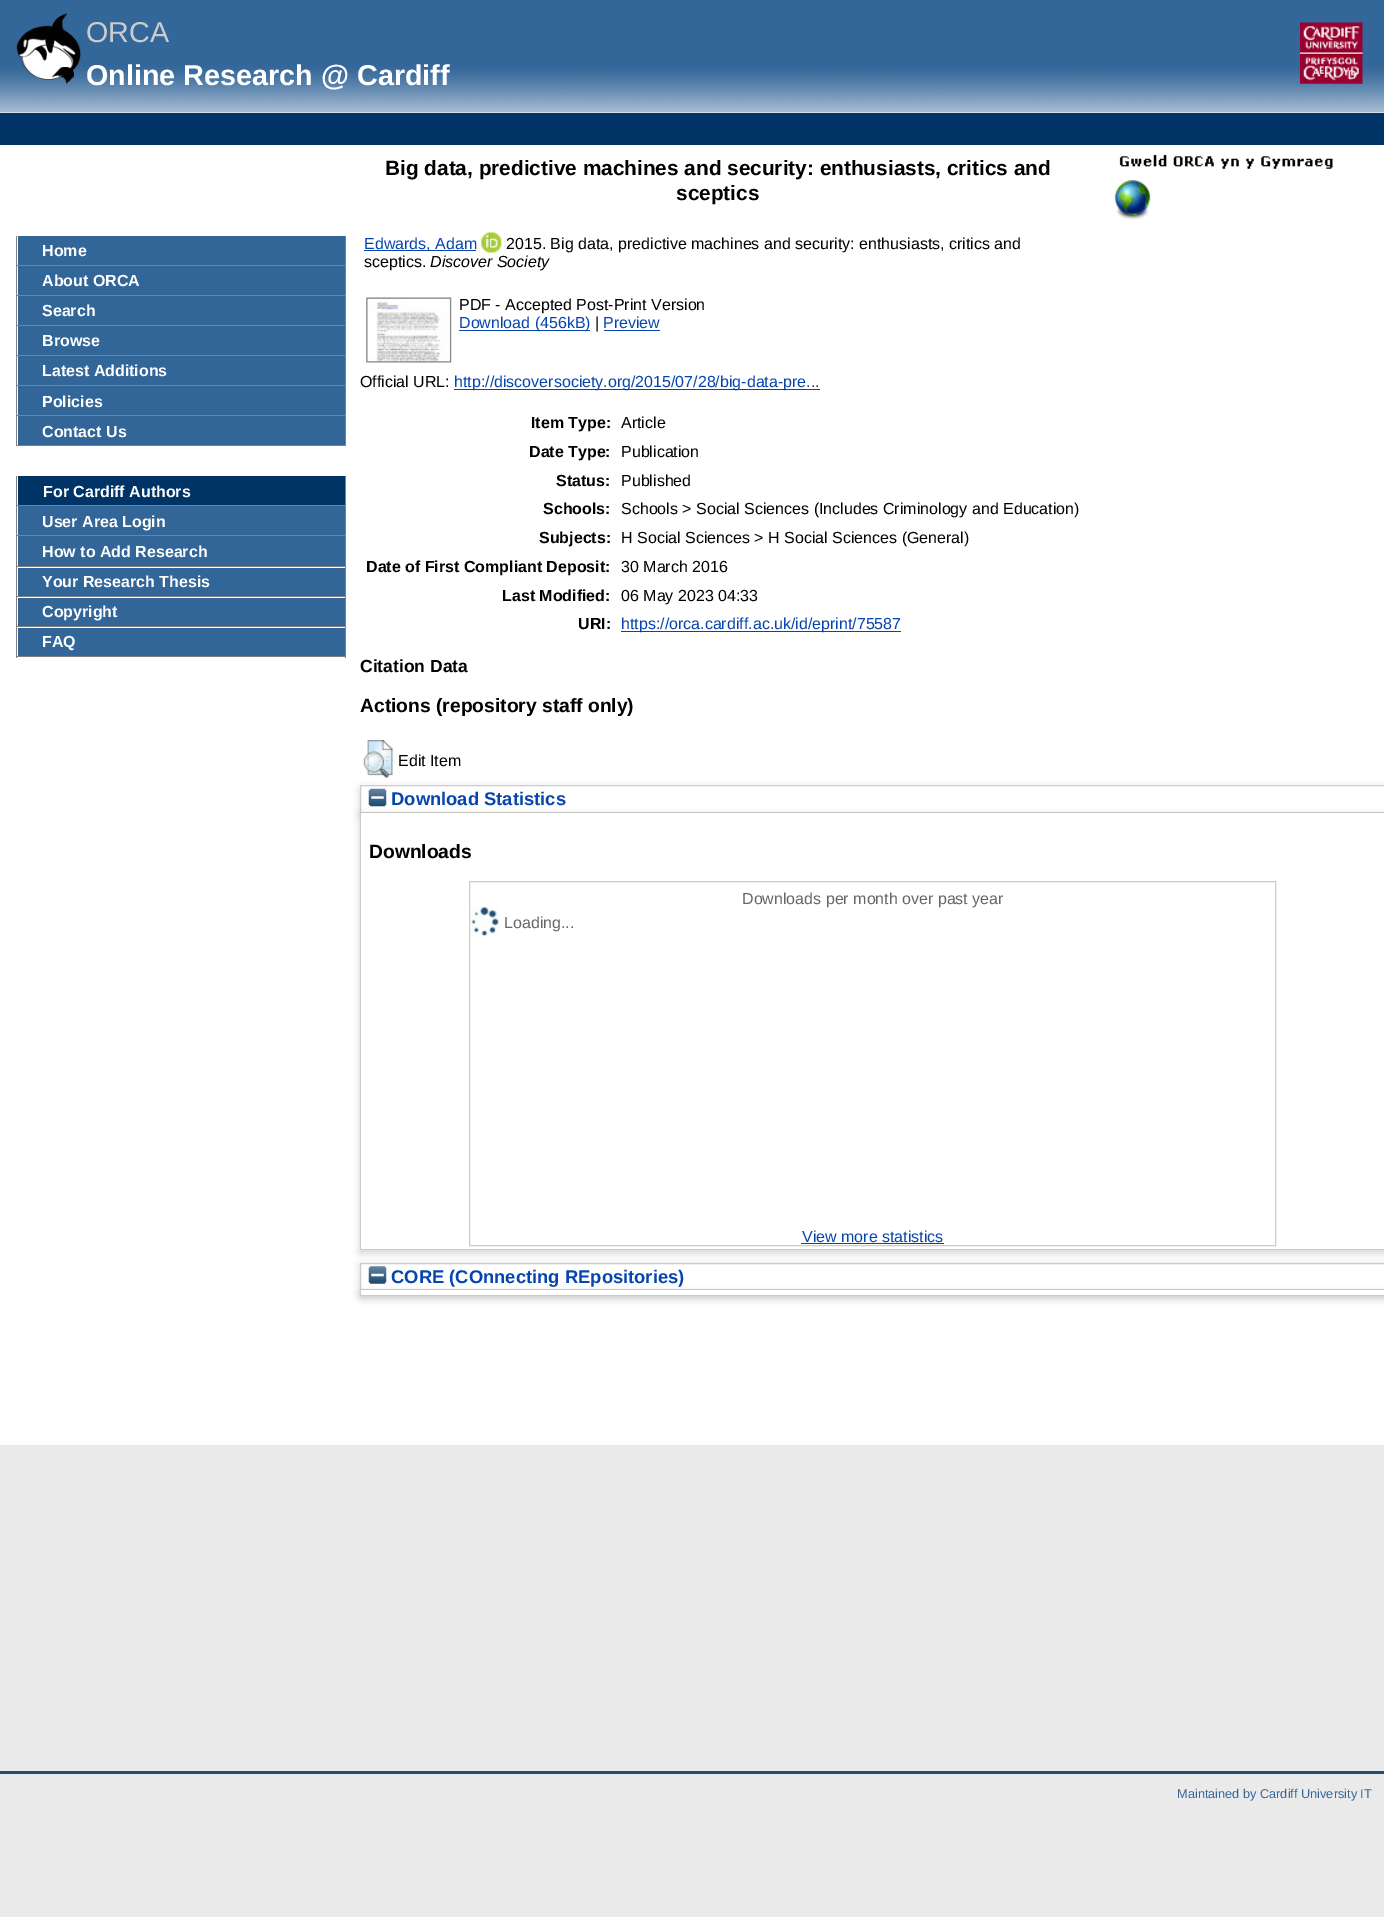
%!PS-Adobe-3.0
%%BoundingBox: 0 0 1384 1917
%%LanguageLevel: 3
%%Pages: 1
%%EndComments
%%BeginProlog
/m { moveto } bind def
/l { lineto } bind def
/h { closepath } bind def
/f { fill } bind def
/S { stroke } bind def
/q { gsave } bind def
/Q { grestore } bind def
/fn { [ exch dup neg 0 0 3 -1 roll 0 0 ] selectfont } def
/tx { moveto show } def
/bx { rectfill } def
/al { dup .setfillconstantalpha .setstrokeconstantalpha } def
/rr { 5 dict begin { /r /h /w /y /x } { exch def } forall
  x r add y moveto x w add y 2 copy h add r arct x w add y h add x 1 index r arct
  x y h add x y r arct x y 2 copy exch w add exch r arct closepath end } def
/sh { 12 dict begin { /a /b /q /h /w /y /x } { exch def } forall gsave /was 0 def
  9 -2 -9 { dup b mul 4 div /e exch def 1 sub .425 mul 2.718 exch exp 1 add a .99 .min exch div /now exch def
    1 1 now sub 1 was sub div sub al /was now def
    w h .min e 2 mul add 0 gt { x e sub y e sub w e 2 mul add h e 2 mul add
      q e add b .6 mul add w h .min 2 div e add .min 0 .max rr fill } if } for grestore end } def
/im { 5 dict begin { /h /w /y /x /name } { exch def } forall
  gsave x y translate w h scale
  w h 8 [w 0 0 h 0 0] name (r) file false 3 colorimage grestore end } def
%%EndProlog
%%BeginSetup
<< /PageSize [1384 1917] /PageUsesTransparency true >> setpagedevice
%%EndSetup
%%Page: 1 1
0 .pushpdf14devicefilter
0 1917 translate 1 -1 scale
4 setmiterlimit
0.918 setgray
0 0 1384 1917 bx
1 setgray
0 112 1384 1333 bx
(image0.raw) 0 0 1384 113 im
(image1.raw) 16 13 65 71 im
/LiberationSans-Regular 28.75 fn
0.8 setgray
(ORCA) 86 42 tx
(image2.raw) 1300 22 63 62 im
/LiberationSans-Bold 28.75 fn
1 setgray
(Online Research @ Cardiff) 86 85 tx
0 0.204 0.4 setrgbcolor
0 113 1384 32 bx
0.196 0.4 0.6 setrgbcolor
18 236 327 29 bx
0.502 setgray
345 236 1 210 bx
16 265 330 1 bx
16 236 1 30 bx
/LiberationSans-Bold 16 fn
1 setgray
(Home) 42 256 tx
0.196 0.4 0.6 setrgbcolor
18 266 327 29 bx
0.502 setgray
16 295 330 1 bx
16 266 1 30 bx
1 setgray
(About ORCA) 42 286 tx
0.196 0.4 0.6 setrgbcolor
18 296 327 29 bx
0.502 setgray
16 325 330 1 bx
16 296 1 30 bx
1 setgray
(Search) 42 316 tx
0.196 0.4 0.6 setrgbcolor
18 326 327 29 bx
0.502 setgray
16 355 330 1 bx
16 326 1 30 bx
1 setgray
(Browse) 42 346 tx
0.196 0.4 0.6 setrgbcolor
18 356 327 29 bx
0.502 setgray
16 385 330 1 bx
16 356 1 30 bx
1 setgray
(Latest Additions) 42 376 tx
0.196 0.4 0.6 setrgbcolor
18 386 327 29 bx
0.502 setgray
16 415 330 1 bx
16 386 1 30 bx
1 setgray
(Policies) 42 407 tx
0.196 0.4 0.6 setrgbcolor
18 416 327 29 bx
0.502 setgray
16 445 330 1 bx
16 416 1 30 bx
1 setgray
(Contact Us) 42 437 tx
0 0.204 0.4 setrgbcolor
18 476 327 29 bx
0.502 setgray
345 476 1 182 bx
16 505 330 1 bx
16 476 1 30 bx
1 setgray
(For Cardiff Authors) 43 497 tx
0.196 0.4 0.6 setrgbcolor
18 506 327 29 bx
0.502 setgray
16 535 330 1 bx
16 506 1 30 bx
1 setgray
(User Area Login) 42 527 tx
0.196 0.4 0.6 setrgbcolor
18 536 327 30 bx
0.502 setgray
16 566 330 1 bx
16 536 1 32 bx
1 setgray
(How to Add Research) 42 557 tx
0.196 0.4 0.6 setrgbcolor
18 568 327 28 bx
0.502 setgray
16 596 330 1 bx
16 568 1 30 bx
1 setgray
(Your Research Thesis) 42 587 tx
0.196 0.4 0.6 setrgbcolor
18 598 327 28 bx
0.502 setgray
16 626 330 1 bx
16 598 1 30 bx
1 setgray
(Copyright) 42 617 tx
0.196 0.4 0.6 setrgbcolor
18 628 327 28 bx
0.502 setgray
16 656 330 1 bx
16 628 1 30 bx
1 setgray
(FAQ) 42 647 tx
/LiberationSans-Bold 20.8 fn
0 setgray
(Big data, predictive machines and security: enthusiasts, critics and) 385 175 tx
(sceptics) 676 200 tx
0.024 0.271 0.678 setrgbcolor
364 250 112 1 bx
/LiberationSans-Regular 16 fn
(Edwards, Adam) 364 249 tx
(image3.raw) 481 232 21 21 im
0 setgray
(2015. Big data, predictive machines and security: enthusiasts, critics and) 506 249 tx
(sceptics.) 364 267 tx
/LiberationSans-Italic 16 fn
(Discover Society) 430 267 tx
(image4.raw) 366 297 86 66 im
/LiberationSans-Regular 16 fn
(PDF - Accepted Post-Print Version) 459 310 tx
0.024 0.271 0.678 setrgbcolor
459 330 131 1 bx
(Download \(456kB\)) 459 328 tx
0 setgray
(|) 595 328 tx
0.024 0.271 0.678 setrgbcolor
(Preview) 603 328 tx
604 330 56 1 bx
0 setgray
(Official URL:) 360 387 tx
0.024 0.271 0.678 setrgbcolor
454 389 366 1 bx
(http://discoversociety.org/2015/07/28/big-data-pre...) 454 387 tx
/LiberationSans-Bold 16 fn
0 setgray
(Item Type:) 531 428 tx
/LiberationSans-Regular 16 fn
(Article) 621 428 tx
/LiberationSans-Bold 16 fn
(Date Type:) 529 457 tx
/LiberationSans-Regular 16 fn
(Publication) 621 457 tx
/LiberationSans-Bold 16 fn
(Status:) 556 486 tx
/LiberationSans-Regular 16 fn
(Published) 621 486 tx
/LiberationSans-Bold 16 fn
(Schools:) 543 514 tx
/LiberationSans-Regular 16 fn
(Schools > Social Sciences \(Includes Criminology and Education\)) 621 514 tx
/LiberationSans-Bold 16 fn
(Subjects:) 539 543 tx
/LiberationSans-Regular 16 fn
(H Social Sciences > H Social Sciences \(General\)) 621 543 tx
/LiberationSans-Bold 16 fn
(Date of First Compliant Deposit:) 366 572 tx
/LiberationSans-Regular 16 fn
(30 March 2016) 621 572 tx
/LiberationSans-Bold 16 fn
(Last Modified:) 502 601 tx
/LiberationSans-Regular 16 fn
(06 May 2023 04:33) 621 601 tx
/LiberationSans-Bold 16 fn
(URI:) 578 629 tx
0.024 0.271 0.678 setrgbcolor
621 631 280 1 bx
/LiberationSans-Regular 16 fn
(https://orca.cardiff.ac.uk/id/eprint/75587) 621 629 tx
/LiberationSans-Bold 17.5 fn
0 setgray
(Citation Data) 360 672 tx
/LiberationSans-Bold 19.25 fn
(Actions \(repository staff only\)) 360 712 tx
0.392 setgray
360 788 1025 27 0 4 0.3 sh
(image5.raw) 363 740 30 38 im
/LiberationSans-Regular 16 fn
0 setgray
(Edit Item) 398 766 tx
1 setgray
360.5 785.5 m 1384.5 785.5 l 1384.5 812.5 l 360.5 812.5 l h q f Q
0.8 setgray
S
0.392 setgray
360 815 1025 438 0 4 0.3 sh
(image6.raw) 368 788 19 19 im
/LiberationSans-Bold 18.4 fn
0.024 0.271 0.678 setrgbcolor
(Download Statistics) 391 805 tx
1 setgray
361 813 1023 436 bx
0.8 setgray
360 1249 1024 1 bx
360 813 1 437 bx
/LiberationSans-Bold 19.25 fn
0 setgray
(Downloads) 369 858 tx
0.8 setgray
469.5 881.5 806 364 rectstroke
/LiberationSans-Regular 16 fn
0.4 setgray
(Downloads per month over past year) 742 904 tx
(image7.raw) 471 907 28 30 im
(Loading...) 504 928 tx
0.024 0.271 0.678 setrgbcolor
(View more statistics) 802 1242 tx
801 1243 143 1 bx
q
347 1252 m 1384 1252 l 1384 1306 l 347 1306 l h 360 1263 m 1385 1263 l 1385 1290 l 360 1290 l h eoclip newpath
0.392 setgray
360 1265 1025 28 0 4 0.3 sh
Q
0.8 setgray
360.5 1263.5 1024 26 rectstroke
0.392 setgray
360 1293 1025 6 0 4 0.3 sh
(image8.raw) 368 1266 19 18 im
/LiberationSans-Bold 18.4 fn
0.024 0.271 0.678 setrgbcolor
(CORE \(COnnecting REpositories\)) 391 1283 tx
1 setgray
360 1290 1024 5 bx
0.8 setgray
360 1295 1024 1 bx
360 1290 1 6 bx
(image9.raw) 1119 154 214 15 im
(image10.raw) 1114 180 37 40 im
0.125 0.31 0.463 setrgbcolor
0 1771 1384 3 bx
/LiberationSans-Regular 12.75 fn
0.2 0.4 0.6 setrgbcolor
(Maintained by Cardiff University IT) 1177 1798 tx
.poppdf14devicefilter showpage
%%EOF
